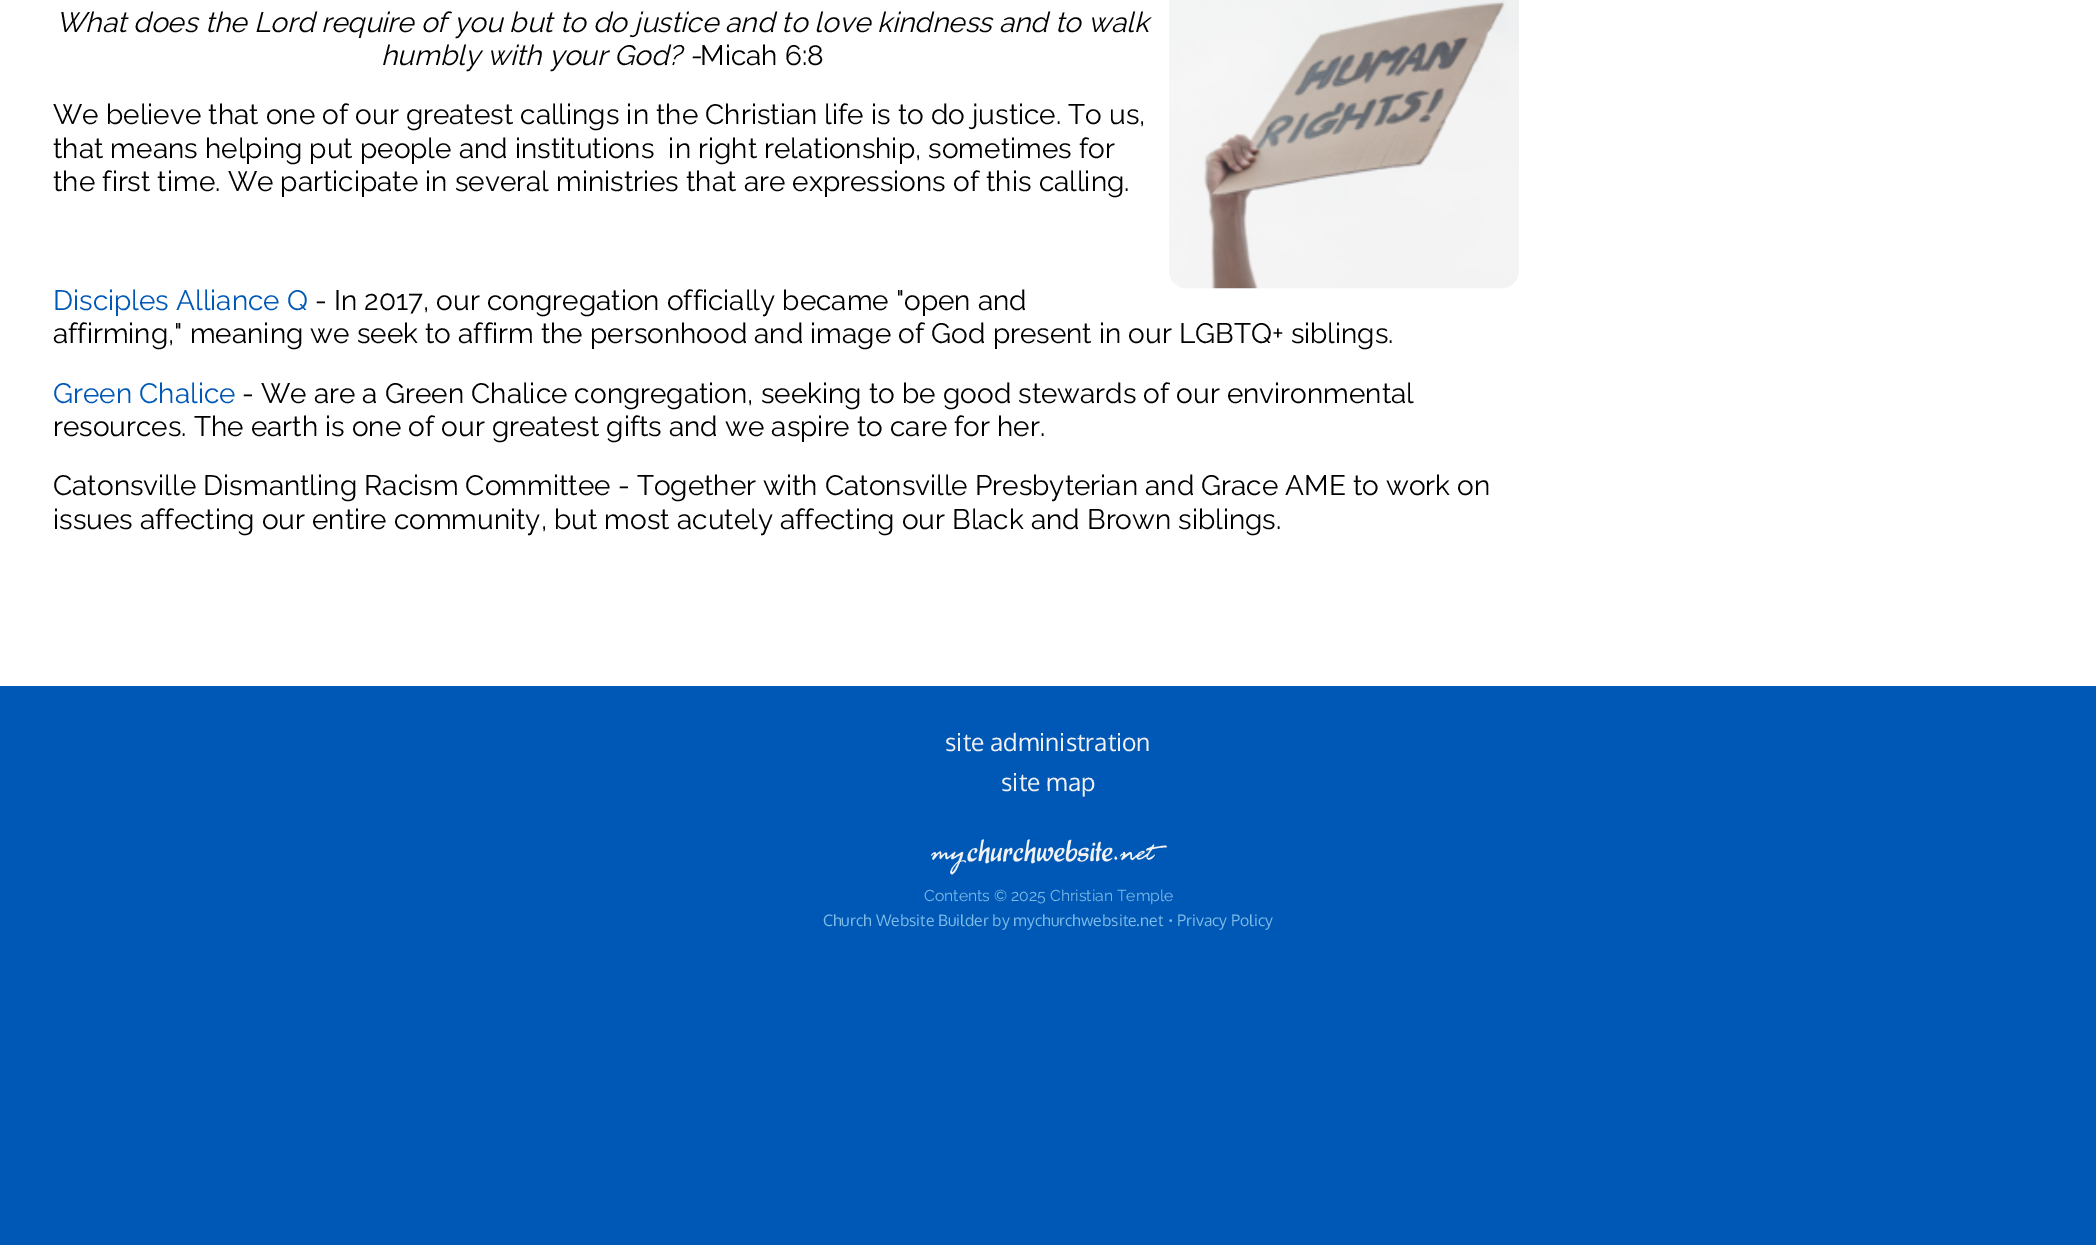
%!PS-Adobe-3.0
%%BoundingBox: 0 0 2096 1245
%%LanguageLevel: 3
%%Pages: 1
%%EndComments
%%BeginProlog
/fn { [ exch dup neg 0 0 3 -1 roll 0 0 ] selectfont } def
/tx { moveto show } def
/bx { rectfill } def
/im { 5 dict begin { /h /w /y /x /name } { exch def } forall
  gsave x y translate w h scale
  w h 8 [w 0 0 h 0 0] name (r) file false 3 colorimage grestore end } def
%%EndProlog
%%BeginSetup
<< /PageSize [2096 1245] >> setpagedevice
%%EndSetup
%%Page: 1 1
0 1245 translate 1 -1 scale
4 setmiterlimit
0 0.345 0.714 setrgbcolor
0 0 2096 1245 bx
1 setgray
0 0 2096 686 bx
/Raleway-Italic 28 fn
0 setgray
(What does the Lord require of you but to do justice and to love kindness and to walk) 56 32 tx
(humbly with your God? -) 381 65 tx
/Raleway-Regular 28 fn
(Micah 6:8) 700 65 tx
(image0.raw) 1169 0 350 289 im
(We believe that one of our greatest callings in the Christian life is to do justice. To us,) 53 124 tx
(that means helping put people and institutions  in right relationship, sometimes for) 53 158 tx
(the first time. We participate in several ministries that are expressions of this calling.) 53 191 tx
0 0.345 0.714 setrgbcolor
(Disciples Alliance Q) 53 310 tx
0 setgray
(- In 2017, our congregation officially became "open and) 315 310 tx
(affirming," meaning we seek to affirm the personhood and image of God present in our LGBTQ+ siblings.) 53 343 tx
0 0.345 0.714 setrgbcolor
(Green Chalice) 53 403 tx
0 setgray
(- We are a Green Chalice congregation, seeking to be good stewards of our environmental) 242 403 tx
(resources. The earth is one of our greatest gifts and we aspire to care for her.) 53 436 tx
(Catonsville Dismantling Racism Committee - Together with Catonsville Presbyterian and Grace AME to work on) 53 495 tx
(issues affecting our entire community, but most acutely affecting our Black and Brown siblings.) 53 529 tx
/Oxygen-Regular 24.5 fn
0.949 setgray
(site administration) 945 751 tx
(site map) 1001 791 tx
(image1.raw) 931 839 236 36 im
/Raleway-Regular 15.75 fn
0.494 0.737 0.914 setrgbcolor
(Contents © 2025 Christian Temple) 924 901 tx
/Oxygen-Regular 15.75 fn
(Church Website Builder by mychurchwebsite.net) 823 926 tx
/Raleway-Regular 15.75 fn
(•) 1168 926 tx
/Oxygen-Regular 15.75 fn
(Privacy Policy) 1177 926 tx
showpage
%%EOF
